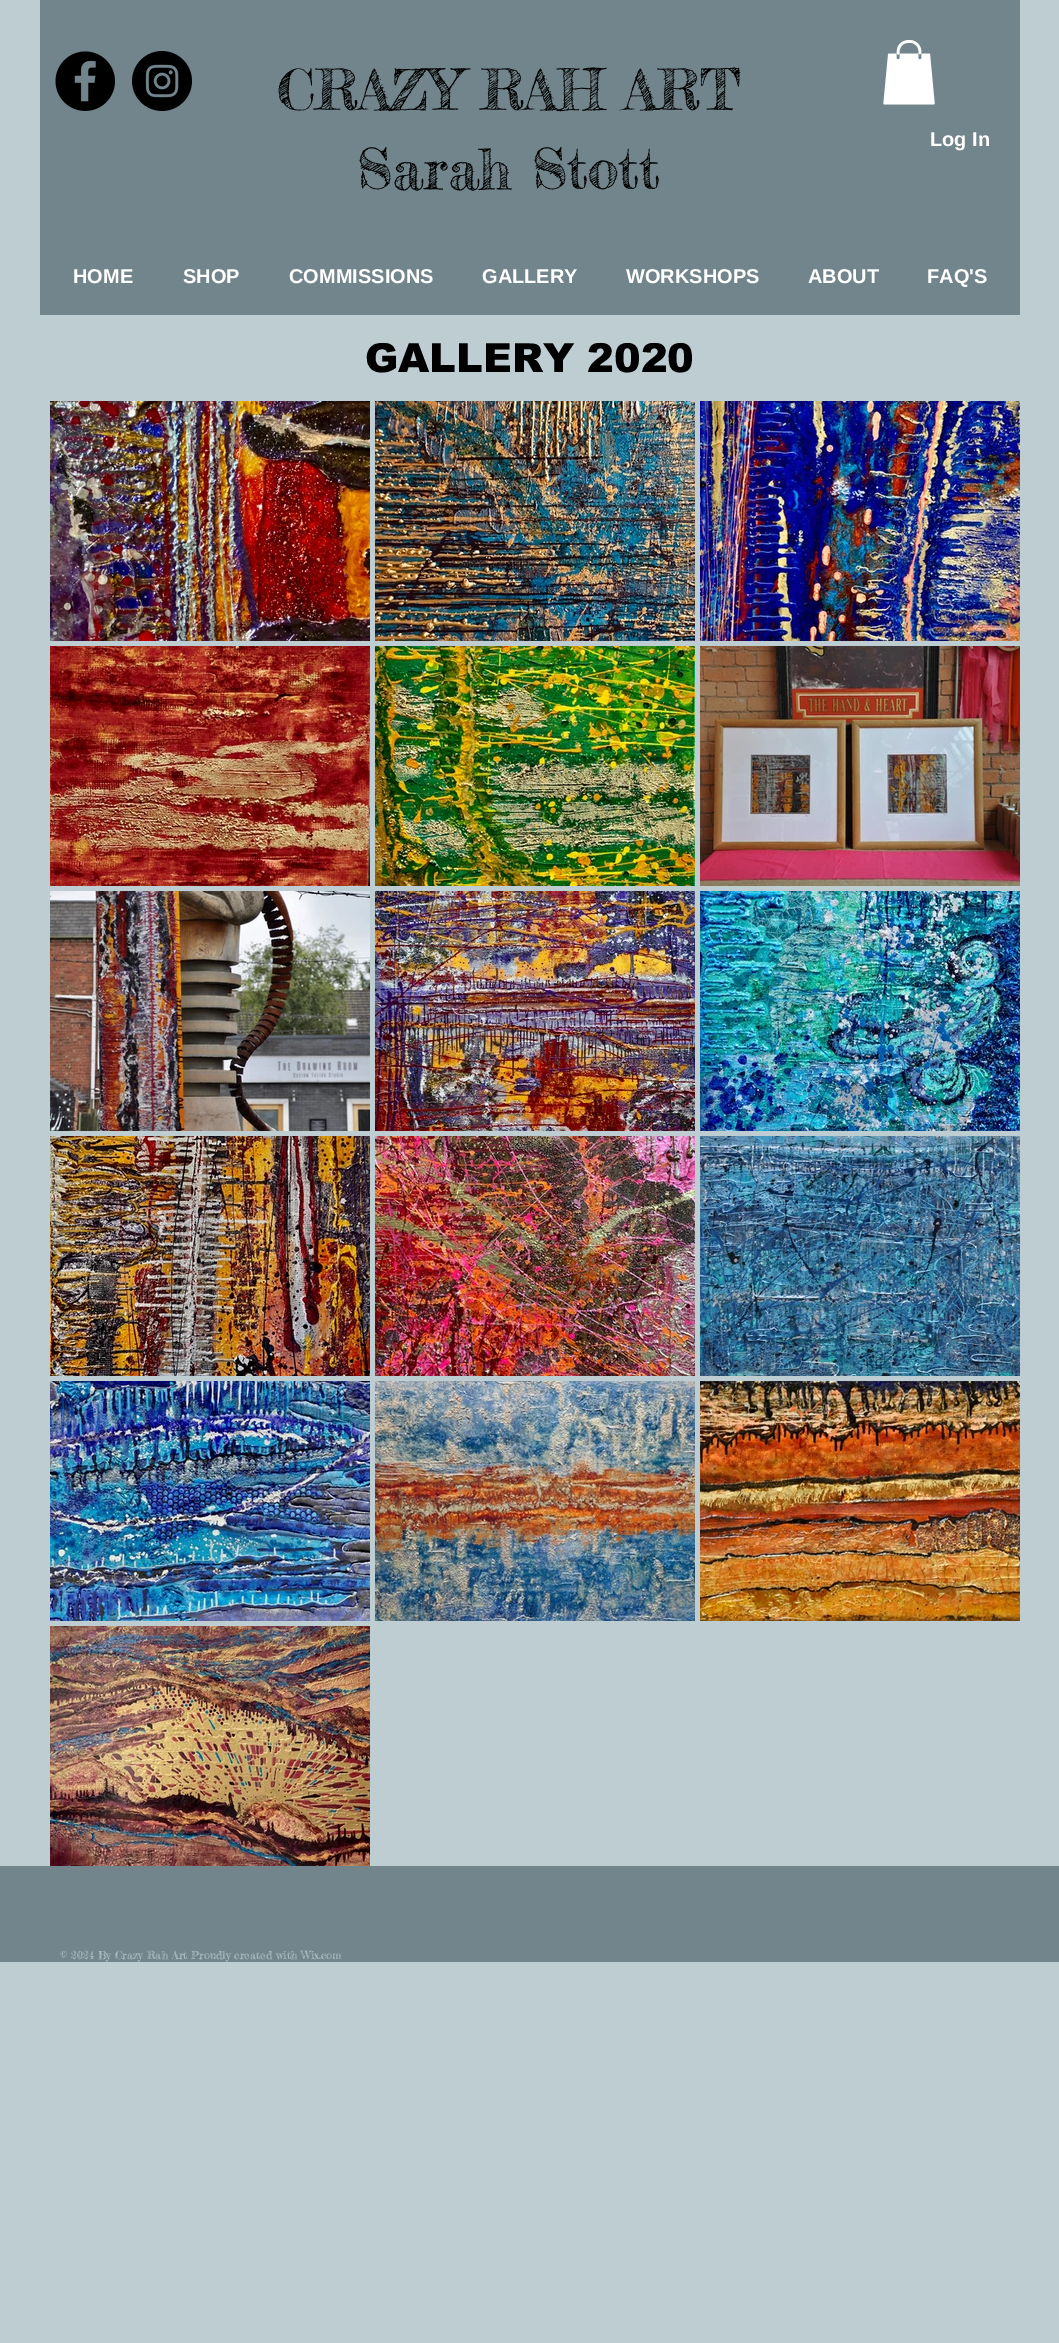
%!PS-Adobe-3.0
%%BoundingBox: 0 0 1059 2343
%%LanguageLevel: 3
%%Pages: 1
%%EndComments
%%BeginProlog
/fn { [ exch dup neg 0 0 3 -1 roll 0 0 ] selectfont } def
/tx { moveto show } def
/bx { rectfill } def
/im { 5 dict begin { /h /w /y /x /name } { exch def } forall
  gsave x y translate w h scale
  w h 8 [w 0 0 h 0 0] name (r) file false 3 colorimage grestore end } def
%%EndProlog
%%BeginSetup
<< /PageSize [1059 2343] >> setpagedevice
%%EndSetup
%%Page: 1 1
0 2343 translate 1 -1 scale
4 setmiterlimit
0.745 0.804 0.82 setrgbcolor
0 0 1059 2343 bx
0.447 0.522 0.549 setrgbcolor
40 0 980 315 bx
(image0.raw) 55 51 60 60 im
(image1.raw) 132 51 60 60 im
/FrederickatheGreat-Regular 56 fn
0 setgray
(CRAZY RAH ART) 277 110 tx
(Sarah Stott) 357 189 tx
(image2.raw) 883 40 52 65 im
/LiberationSans-Bold 20 fn
1 setgray
(Log In) 930 146 tx
(HOME) 73 283 tx
(SHOP) 183 283 tx
(COMMISSIONS) 289 283 tx
(GALLERY) 482 283 tx
(WORKSHOPS) 626 283 tx
(ABOUT) 808 283 tx
(FAQ'S) 927 283 tx
/arial-Black 40 fn
0 setgray
(GALLERY 2020) 365 372 tx
(image3.raw) 50 401 320 240 im
(image4.raw) 375 401 320 240 im
(image5.raw) 700 401 320 240 im
(image6.raw) 50 646 320 240 im
(image7.raw) 375 646 320 240 im
(image8.raw) 700 646 320 240 im
(image9.raw) 50 891 320 240 im
(image10.raw) 375 891 320 240 im
(image11.raw) 700 891 320 240 im
(image12.raw) 50 1136 320 240 im
(image13.raw) 375 1136 320 240 im
(image14.raw) 700 1136 320 240 im
(image15.raw) 50 1381 320 240 im
(image16.raw) 375 1381 320 240 im
(image17.raw) 700 1381 320 240 im
(image18.raw) 50 1626 320 240 im
0.447 0.522 0.549 setrgbcolor
0 1866 1059 96 bx
/FrederickatheGreat-Regular 11 fn
0.745 0.804 0.82 setrgbcolor
(© 2024 By Crazy Rah Art Proudly created with Wix.com) 60 1959 tx
showpage
%%EOF
